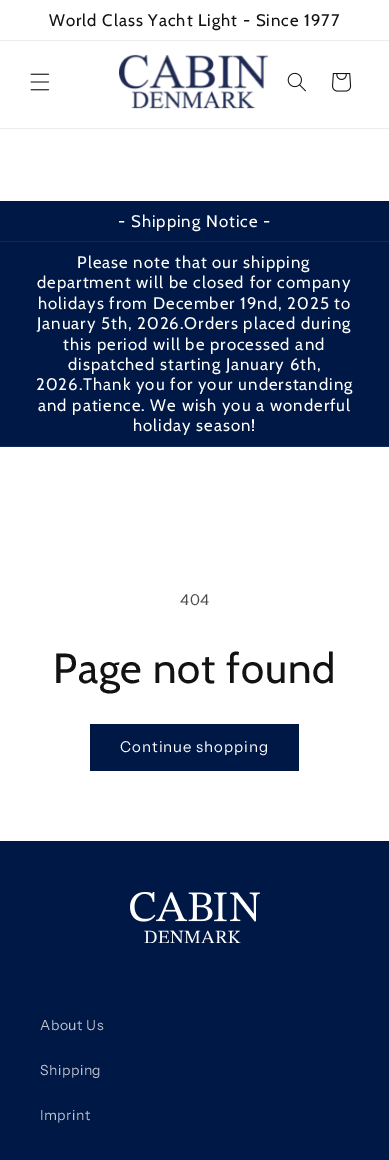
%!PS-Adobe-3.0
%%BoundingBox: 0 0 389 1160
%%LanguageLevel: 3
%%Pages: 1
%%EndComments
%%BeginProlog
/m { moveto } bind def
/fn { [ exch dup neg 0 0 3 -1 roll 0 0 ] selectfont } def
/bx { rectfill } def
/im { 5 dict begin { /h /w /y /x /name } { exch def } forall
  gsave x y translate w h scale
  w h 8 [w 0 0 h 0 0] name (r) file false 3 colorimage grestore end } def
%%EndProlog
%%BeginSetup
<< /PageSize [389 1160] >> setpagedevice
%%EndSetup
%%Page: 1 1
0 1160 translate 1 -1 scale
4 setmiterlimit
1 setgray
0 0 389 1160 bx
0.925 setgray
0 40 389 1 bx
/Cabin-Regular 16.75 fn
0.071 setgray
49 26 m 1 0 (World Class Yacht Light - Since 1977) ashow
0.925 setgray
0 128 389 1 bx
(image0.raw) 30 73 20 18 im
(image1.raw) 119 54 149 55 im
(image2.raw) 287 72 19 20 im
(image3.raw) 332 73 20 19 im
0 0.094 0.271 setrgbcolor
0 201 389 40 bx
0.078 0.165 0.329 setrgbcolor
0 241 389 1 bx
1 setgray
118 227 m 1 0 (- Shipping Notice -) ashow
0 0.094 0.271 setrgbcolor
0 242 389 204 bx
0.078 0.165 0.329 setrgbcolor
0 446 389 1 bx
1 setgray
77 268 m 1 0 (Please note that our shipping) ashow
37 288 m 1 0 (department will be closed for company) ashow
38 309 m 1 0 (holidays from December 19nd, 2025 to) ashow
37 329 m 1 0 (January 5th, 2026.Orders placed during) ashow
63 350 m 1 0 (this period will be processed and) ashow
68 370 m 1 0 (dispatched starting January 6th,) ashow
36 390 m 1 0 (2026.Thank you for your understanding) ashow
38 411 m 1 0 (and patience. We wish you a wonderful) ashow
133 431 m 1 0 (holiday season!) ashow
/InstrumentSans-Regular 15 fn
0.302 setgray
180 605 m 0.5 0 (404) ashow
/Cabin-Regular 42 fn
0.071 setgray
53 683 m 0.8 0 (Page not found) ashow
0 0.094 0.271 setrgbcolor
90 724 209 47 bx
/InstrumentSans-Regular 15 fn
1 setgray
120 752 m 1 0 (Continue shopping) ashow
0 0.094 0.271 setrgbcolor
0 841 389 319 bx
(image4.raw) 130 892 130 51 im
/InstrumentSans-Regular 14 fn
0.749 0.773 0.82 setrgbcolor
40 1030 m 0.5 0 (About Us) ashow
40 1075 m 0.5 0 (Shipping) ashow
40 1120 m 0.5 0 (Imprint) ashow
showpage
%%EOF
